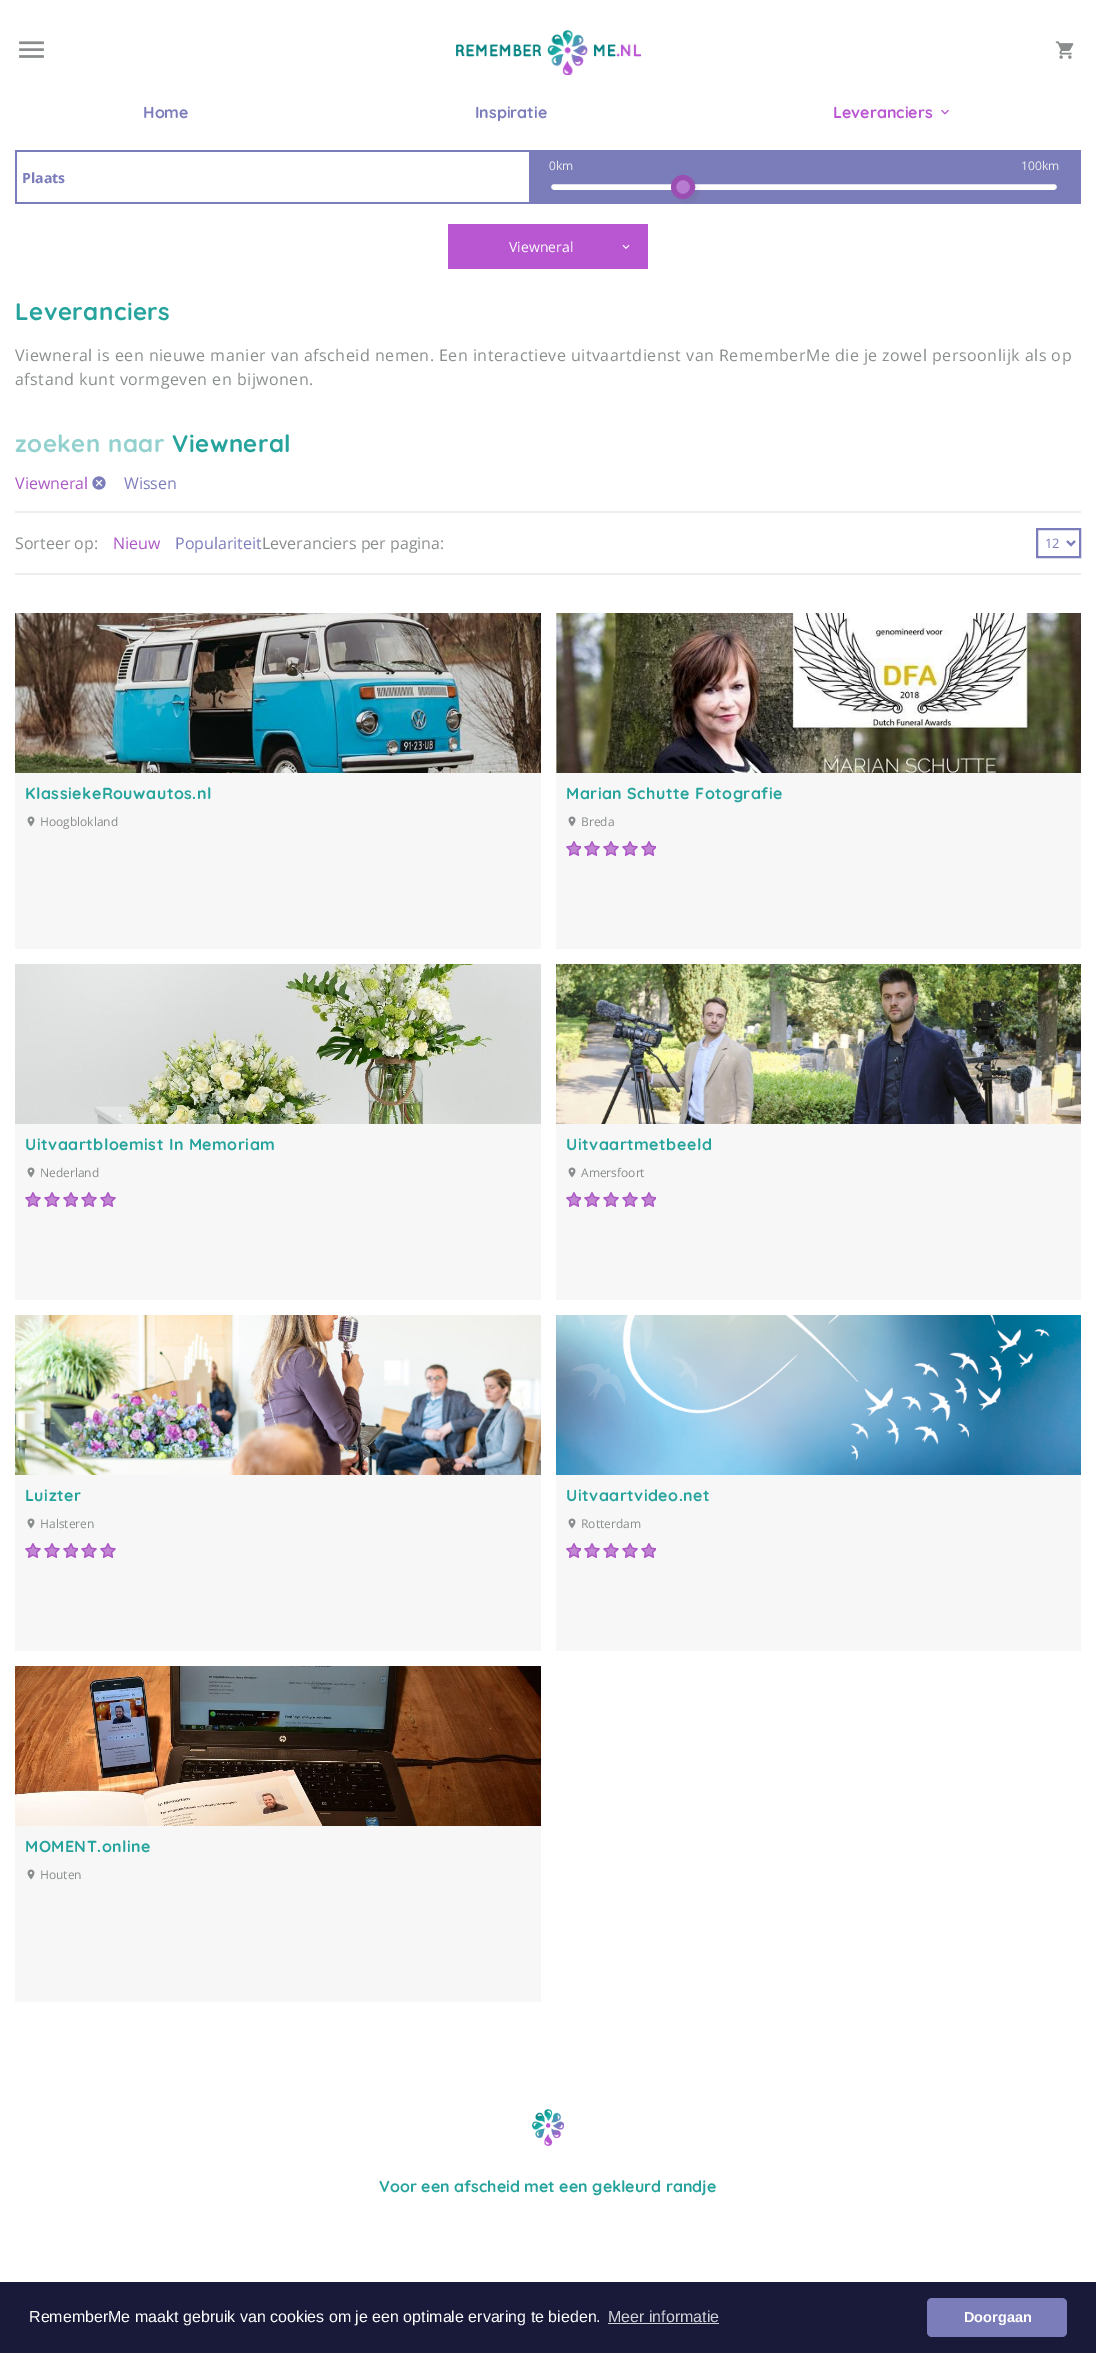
%!PS-Adobe-3.0
%%BoundingBox: 0 0 1096 2353
%%LanguageLevel: 3
%%Pages: 1
%%EndComments
%%BeginProlog
/m { moveto } bind def
/l { lineto } bind def
/f { fill } bind def
/S { stroke } bind def
/q { gsave } bind def
/Q { grestore } bind def
/w { setlinewidth } bind def
/fn { [ exch dup neg 0 0 3 -1 roll 0 0 ] selectfont } def
/tx { moveto show } def
/bx { rectfill } def
/al { dup .setfillconstantalpha .setstrokeconstantalpha } def
/ci { newpath 0 360 arc closepath } def
/rr { 5 dict begin { /r /h /w /y /x } { exch def } forall
  x r add y moveto x w add y 2 copy h add r arct x w add y h add x 1 index r arct
  x y h add x y r arct x y 2 copy exch w add exch r arct closepath end } def
/sh { 12 dict begin { /a /b /q /h /w /y /x } { exch def } forall gsave /was 0 def
  9 -2 -9 { dup b mul 4 div /e exch def 1 sub .425 mul 2.718 exch exp 1 add a .99 .min exch div /now exch def
    1 1 now sub 1 was sub div sub al /was now def
    w h .min e 2 mul add 0 gt { x e sub y e sub w e 2 mul add h e 2 mul add
      q e add b .6 mul add w h .min 2 div e add .min 0 .max rr fill } if } for grestore end } def
/im { 5 dict begin { /h /w /y /x /name } { exch def } forall
  gsave x y translate w h scale
  w h 8 [w 0 0 h 0 0] name (r) file false 3 colorimage grestore end } def
%%EndProlog
%%BeginSetup
<< /PageSize [1096 2353] /PageUsesTransparency true >> setpagedevice
%%EndSetup
%%Page: 1 1
0 .pushpdf14devicefilter
0 2353 translate 1 -1 scale
4 setmiterlimit
1 setgray
0 0 1096 2353 bx
(image0.raw) 19 41 25 17 im
(image1.raw) 456 30 185 45 im
(image2.raw) 1055 41 19 18 im
/Quicksand-Bold 16 fn
0.482 0.486 0.729 setrgbcolor
(Home) 143 118 tx
(Inspiratie) 475 118 tx
0.725 0.337 0.824 setrgbcolor
(Leveranciers) 833 118 tx
(image3.raw) 941 109 8 6 im
0.482 0.486 0.729 setrgbcolor
15 150 1066 54 bx
/OpenSans-Regular 12 fn
0.933 setgray
(0km) 549 170 tx
(100km) 1021 170 tx
1 setgray
550 183 508 8 4 rr q f Q
0.482 0.486 0.729 setrgbcolor
2 w
S
0 setgray
675 179 24 24 12 2 0.05 sh
0.718 0.482 0.82 setrgbcolor
683 187 9.5 ci q f Q
0.604 0.306 0.694 setrgbcolor
5 w
S
1 setgray
17 152 512 50 bx
/OpenSans-Bold 14 fn
0.482 0.486 0.729 setrgbcolor
(Plaats) 22 183 tx
0.725 0.337 0.824 setrgbcolor
448 224 200 45 bx
/OpenSans-Regular 14 fn
1 setgray
(Viewneral) 509 252 tx
(image4.raw) 622 244 8 5 im
/Quicksand-Bold 24 fn
0.149 0.639 0.612 setrgbcolor
15 320 m 0.5 0 (Leveranciers) ashow
/OpenSans-Regular 16 fn
0.537 0.553 0.553 setrgbcolor
15 361 m 0.5 0 (Viewneral is een nieuwe manier van afscheid nemen. Een interactieve uitvaartdienst van RememberMe die je zowel persoonlijk als op) ashow
15 385 m 0.5 0 (afstand kunt vormgeven en bijwonen.) ashow
/Quicksand-Bold 24 fn
0.576 0.82 0.808 setrgbcolor
15 452 m 0.5 0 (zoeken naar) ashow
0.149 0.639 0.612 setrgbcolor
172 452 m 0.5 0 (Viewneral) ashow
/OpenSans-Regular 16 fn
0.671 0.337 0.769 setrgbcolor
(Viewneral) 15 489 tx
(image5.raw) 92 476 14 14 im
0.482 0.486 0.729 setrgbcolor
(Wissen) 124 489 tx
0.933 0.933 0.937 setrgbcolor
15 511 1066 2 bx
15 573 1066 2 bx
0.537 0.553 0.553 setrgbcolor
(Sorteer op:) 15 549 tx
0.671 0.337 0.769 setrgbcolor
(Nieuw) 113 549 tx
0.482 0.486 0.729 setrgbcolor
(Populariteit) 175 549 tx
0.537 0.553 0.553 setrgbcolor
(Leveranciers per pagina:) 262 549 tx
0.482 0.486 0.729 setrgbcolor
2 w
1037 529 43 28 rectstroke
1067 541 m 1071 545 l 1075 541 l S
/OpenSans-Regular 13 fn
(12) 1045 548 tx
(image6.raw) 15 613 526 160 im
0.969 setgray
15 773 526 176 bx
/Quicksand-Bold 16 fn
0.149 0.639 0.612 setrgbcolor
25 799 m 0.5 0 (KlassiekeRouwautos.nl) ashow
(image7.raw) 27 816 8 11 im
/OpenSans-Regular 12 fn
0.537 0.553 0.553 setrgbcolor
(Hoogblokland) 40 826 tx
(image8.raw) 556 613 525 160 im
0.969 setgray
556 773 525 176 bx
/Quicksand-Bold 16 fn
0.149 0.639 0.612 setrgbcolor
566 799 m 0.5 0 (Marian Schutte Fotografie) ashow
(image7.raw) 568 816 8 11 im
/OpenSans-Regular 12 fn
0.537 0.553 0.553 setrgbcolor
(Breda) 581 826 tx
(image9.raw) 566 841 15 15 im
(image10.raw) 584 841 16 15 im
(image10.raw) 603 841 16 15 im
(image10.raw) 622 841 16 15 im
(image9.raw) 641 841 15 15 im
(image11.raw) 15 964 526 160 im
0.969 setgray
15 1124 526 176 bx
/Quicksand-Bold 16 fn
0.149 0.639 0.612 setrgbcolor
25 1150 m 0.5 0 (Uitvaartbloemist In Memoriam) ashow
(image7.raw) 27 1167 8 11 im
/OpenSans-Regular 12 fn
0.537 0.553 0.553 setrgbcolor
(Nederland) 40 1177 tx
(image10.raw) 25 1192 16 15 im
(image10.raw) 44 1192 16 15 im
(image9.raw) 63 1192 15 15 im
(image10.raw) 81 1192 16 15 im
(image10.raw) 100 1192 16 15 im
(image12.raw) 556 964 525 160 im
0.969 setgray
556 1124 525 176 bx
/Quicksand-Bold 16 fn
0.149 0.639 0.612 setrgbcolor
566 1150 m 0.5 0 (Uitvaartmetbeeld) ashow
(image7.raw) 568 1167 8 11 im
/OpenSans-Regular 12 fn
0.537 0.553 0.553 setrgbcolor
(Amersfoort) 581 1177 tx
(image9.raw) 566 1192 15 15 im
(image10.raw) 584 1192 16 15 im
(image10.raw) 603 1192 16 15 im
(image10.raw) 622 1192 16 15 im
(image9.raw) 641 1192 15 15 im
(image13.raw) 15 1315 526 160 im
0.969 setgray
15 1475 526 176 bx
/Quicksand-Bold 16 fn
0.149 0.639 0.612 setrgbcolor
25 1501 m 0.5 0 (Luizter) ashow
(image7.raw) 27 1518 8 11 im
/OpenSans-Regular 12 fn
0.537 0.553 0.553 setrgbcolor
(Halsteren) 40 1528 tx
(image10.raw) 25 1543 16 15 im
(image10.raw) 44 1543 16 15 im
(image9.raw) 63 1543 15 15 im
(image10.raw) 81 1543 16 15 im
(image10.raw) 100 1543 16 15 im
(image14.raw) 556 1315 525 160 im
0.969 setgray
556 1475 525 176 bx
/Quicksand-Bold 16 fn
0.149 0.639 0.612 setrgbcolor
566 1501 m 0.5 0 (Uitvaartvideo.net) ashow
(image7.raw) 568 1518 8 11 im
/OpenSans-Regular 12 fn
0.537 0.553 0.553 setrgbcolor
(Rotterdam) 581 1528 tx
(image9.raw) 566 1543 15 15 im
(image10.raw) 584 1543 16 15 im
(image10.raw) 603 1543 16 15 im
(image10.raw) 622 1543 16 15 im
(image9.raw) 641 1543 15 15 im
(image15.raw) 15 1666 526 160 im
0.969 setgray
15 1826 526 176 bx
/Quicksand-Bold 16 fn
0.149 0.639 0.612 setrgbcolor
25 1852 m 0.5 0 (MOMENT.online) ashow
(image7.raw) 27 1869 8 11 im
/OpenSans-Regular 12 fn
0.537 0.553 0.553 setrgbcolor
(Houten) 40 1879 tx
(image16.raw) 532 2109 32 37 im
/Quicksand-Bold 16 fn
0.149 0.639 0.612 setrgbcolor
(Voor een afscheid met een gekleurd randje) 379 2192 tx
0.098 0.098 0.227 setrgbcolor
0 2282 1096 71 bx
/LiberationSans-Regular 16 fn
1 setgray
(RememberMe maakt gebruik van cookies om je een optimale ervaring te bieden.) 29 2322 tx
0.82 0.82 0.847 setrgbcolor
(Meer informatie) 608 2322 tx
608 2323 111 1 bx
0.482 0.486 0.729 setrgbcolor
927 2298 140 39 5 rr f
/LiberationSans-Bold 14.5 fn
1 setgray
(Doorgaan) 964 2322 tx
.poppdf14devicefilter showpage
%%EOF
